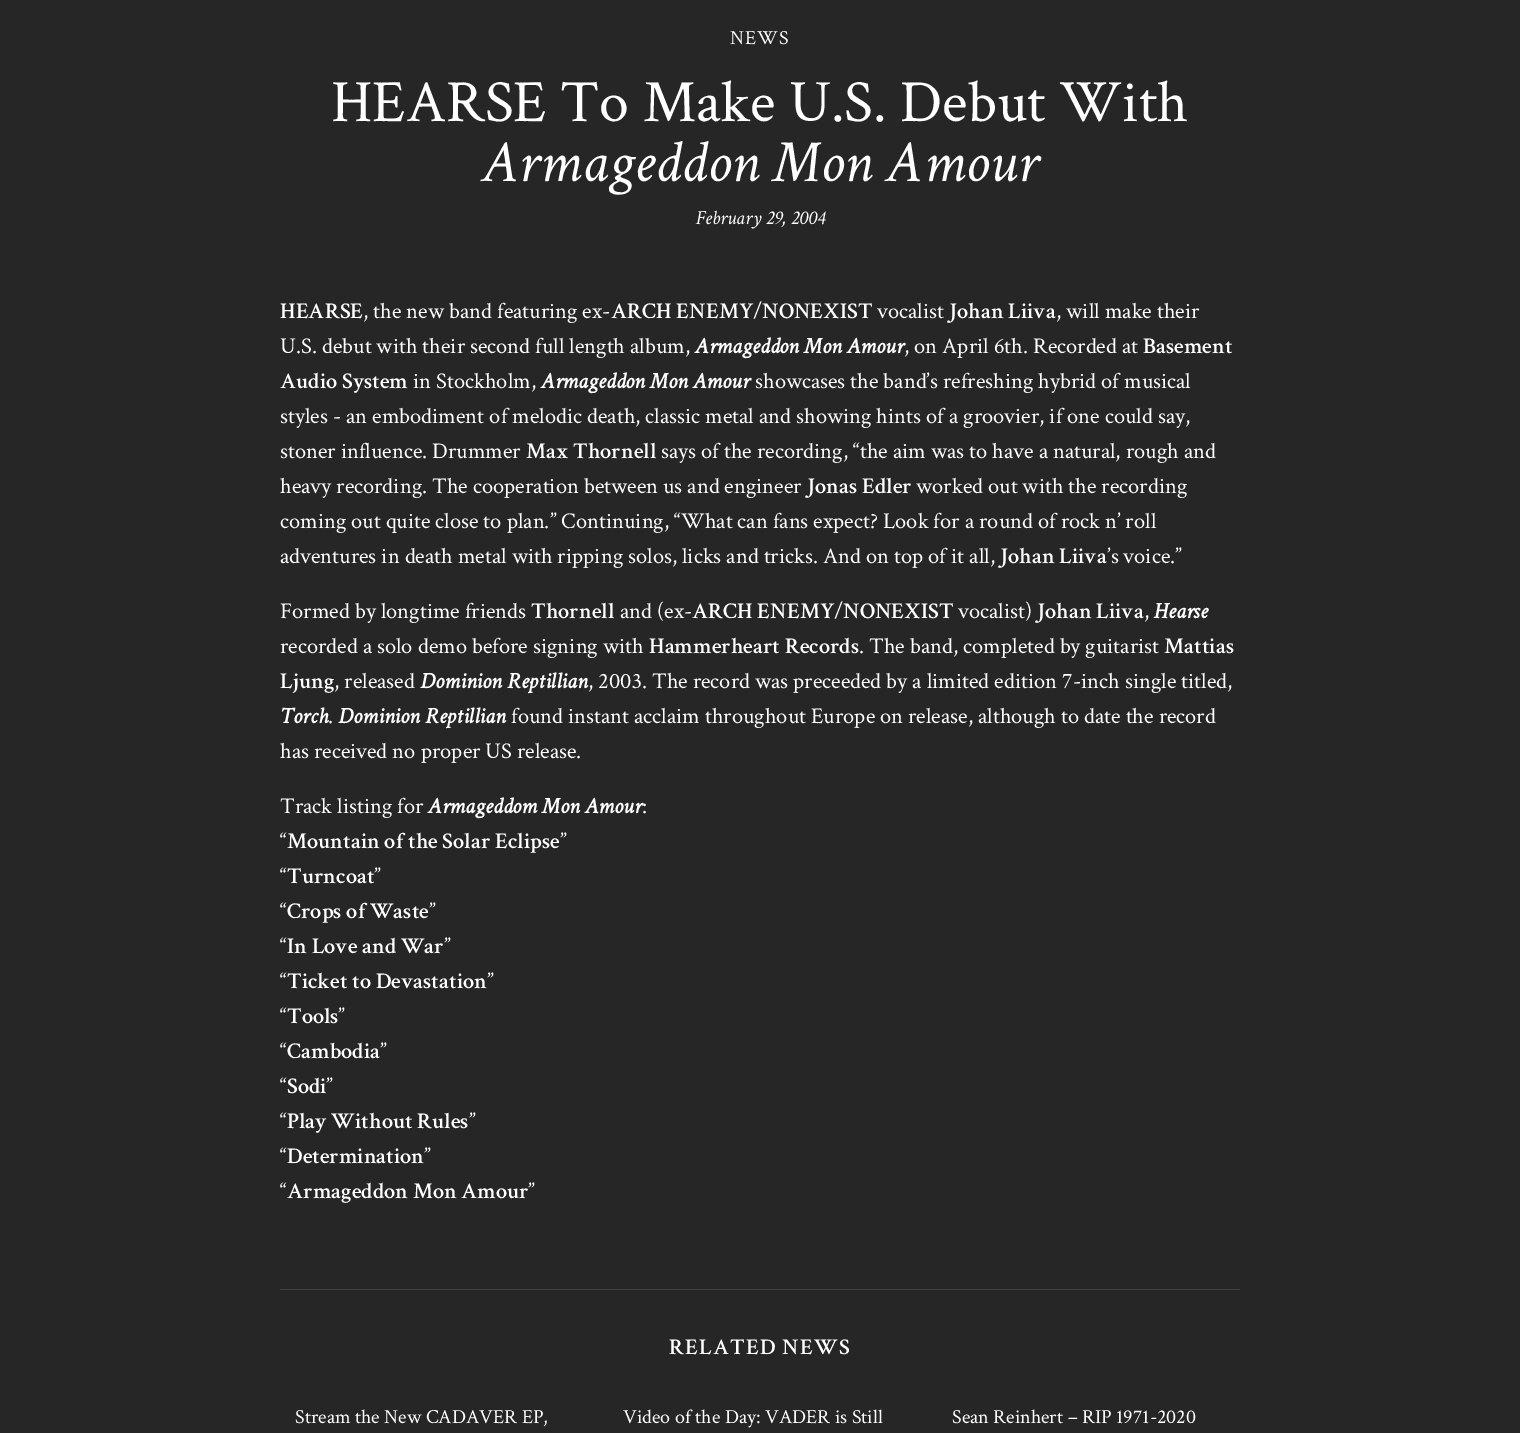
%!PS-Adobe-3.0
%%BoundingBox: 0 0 1520 1433
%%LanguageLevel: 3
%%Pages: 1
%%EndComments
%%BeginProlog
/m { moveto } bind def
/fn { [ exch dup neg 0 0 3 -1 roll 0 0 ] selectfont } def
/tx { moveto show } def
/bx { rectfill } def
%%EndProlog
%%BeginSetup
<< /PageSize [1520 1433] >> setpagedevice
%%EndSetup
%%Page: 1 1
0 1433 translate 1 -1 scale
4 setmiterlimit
0.149 setgray
0 0 1520 1433 bx
/CrimsonText-Regular 20 fn
1 setgray
730 44 m 1 0 (NEWS) ashow
/CrimsonText-Regular 60 fn
(HEARSE To Make U.S. Debut With) 331 121 tx
/CrimsonText-Italic 60 fn
(Armageddon Mon Amour) 482 181 tx
/CrimsonText-Italic 20 fn
(February 29, 2004) 696 224 tx
/CrimsonText-SemiBold 22.5 fn
(HEARSE) 280 318 tx
/CrimsonText-Regular 22.5 fn
(, the new band featuring ex-) 363 318 tx
/CrimsonText-SemiBold 22.5 fn
(ARCH ENEMY) 611 318 tx
/CrimsonText-Regular 22.5 fn
(/) 753 318 tx
/CrimsonText-SemiBold 22.5 fn
(NONEXIST) 762 318 tx
/CrimsonText-Regular 22.5 fn
(vocalist) 877 318 tx
/CrimsonText-SemiBold 22.5 fn
(Johan Liiva) 949 318 tx
/CrimsonText-Regular 22.5 fn
(, will make their) 1056 318 tx
(U.S. debut with their second full length album,) 280 353 tx
/CrimsonText-BoldItalic 22.5 fn
(Armageddon Mon Amour) 695 353 tx
/CrimsonText-Regular 22.5 fn
(, on April 6th. Recorded at) 904 353 tx
/CrimsonText-SemiBold 22.5 fn
(Basement) 1143 353 tx
(Audio System) 280 388 tx
/CrimsonText-Regular 22.5 fn
(in Stockholm,) 413 388 tx
/CrimsonText-BoldItalic 22.5 fn
(Armageddon Mon Amour) 541 388 tx
/CrimsonText-Regular 22.5 fn
(showcases the band’s refreshing hybrid of musical) 755 388 tx
(styles - an embodiment of melodic death, classic metal and showing hints of a groovier, if one could say,) 280 423 tx
(stoner influence. Drummer) 280 458 tx
/CrimsonText-SemiBold 22.5 fn
(Max Thornell) 526 458 tx
/CrimsonText-Regular 22.5 fn
(says of the recording, “the aim was to have a natural, rough and) 661 458 tx
(heavy recording. The cooperation between us and engineer) 280 493 tx
/CrimsonText-SemiBold 22.5 fn
(Jonas Edler) 807 493 tx
/CrimsonText-Regular 22.5 fn
(worked out with the recording) 916 493 tx
(coming out quite close to plan.” Continuing, “What can fans expect? Look for a round of rock n’ roll) 280 528 tx
(adventures in death metal with ripping solos, licks and tricks. And on top of it all,) 280 563 tx
/CrimsonText-SemiBold 22.5 fn
(Johan Liiva) 1000 563 tx
/CrimsonText-Regular 22.5 fn
(’s voice.”) 1107 563 tx
(Formed by longtime friends) 280 618 tx
/CrimsonText-SemiBold 22.5 fn
(Thornell) 531 618 tx
/CrimsonText-Regular 22.5 fn
(and \(ex-) 620 618 tx
/CrimsonText-SemiBold 22.5 fn
(ARCH ENEMY) 692 618 tx
/CrimsonText-Regular 22.5 fn
(/) 834 618 tx
/CrimsonText-SemiBold 22.5 fn
(NONEXIST) 843 618 tx
/CrimsonText-Regular 22.5 fn
(vocalist\)) 958 618 tx
/CrimsonText-SemiBold 22.5 fn
(Johan Liiva) 1037 618 tx
/CrimsonText-Regular 22.5 fn
(,) 1144 618 tx
/CrimsonText-BoldItalic 22.5 fn
(Hearse) 1154 618 tx
/CrimsonText-Regular 22.5 fn
(recorded a solo demo before signing with) 280 653 tx
/CrimsonText-SemiBold 22.5 fn
(Hammerheart Records) 649 653 tx
/CrimsonText-Regular 22.5 fn
(. The band, completed by guitarist) 859 653 tx
/CrimsonText-SemiBold 22.5 fn
(Mattias) 1164 653 tx
(Ljung) 280 688 tx
/CrimsonText-Regular 22.5 fn
(, released) 334 688 tx
/CrimsonText-BoldItalic 22.5 fn
(Dominion Reptillian) 420 688 tx
/CrimsonText-Regular 22.5 fn
(, 2003. The record was preceeded by a limited edition 7-inch single titled,) 588 688 tx
/CrimsonText-BoldItalic 22.5 fn
(Torch) 280 723 tx
/CrimsonText-Regular 22.5 fn
(.) 328 723 tx
/CrimsonText-BoldItalic 22.5 fn
(Dominion Reptillian) 338 723 tx
/CrimsonText-Regular 22.5 fn
(found instant acclaim throughout Europe on release, although to date the record) 511 723 tx
(has received no proper US release.) 280 758 tx
(Track listing for) 280 813 tx
/CrimsonText-BoldItalic 22.5 fn
(Armageddom Mon Amour) 428 813 tx
/CrimsonText-Regular 22.5 fn
(:) 642 813 tx
(“) 280 848 tx
/CrimsonText-SemiBold 22.5 fn
(Mountain of the Solar Eclipse) 287 848 tx
/CrimsonText-Regular 22.5 fn
(”) 560 848 tx
(“) 280 883 tx
/CrimsonText-SemiBold 22.5 fn
(Turncoat) 287 883 tx
/CrimsonText-Regular 22.5 fn
(”) 374 883 tx
(“) 280 918 tx
/CrimsonText-SemiBold 22.5 fn
(Crops of Waste) 287 918 tx
/CrimsonText-Regular 22.5 fn
(”) 429 918 tx
(“) 280 953 tx
/CrimsonText-SemiBold 22.5 fn
(In Love and War) 287 953 tx
/CrimsonText-Regular 22.5 fn
(”) 444 953 tx
(“) 280 988 tx
/CrimsonText-SemiBold 22.5 fn
(Ticket to Devastation) 287 988 tx
/CrimsonText-Regular 22.5 fn
(”) 487 988 tx
(“) 280 1023 tx
/CrimsonText-SemiBold 22.5 fn
(Tools) 287 1023 tx
/CrimsonText-Regular 22.5 fn
(”) 338 1023 tx
(“) 280 1058 tx
/CrimsonText-SemiBold 22.5 fn
(Cambodia) 287 1058 tx
/CrimsonText-Regular 22.5 fn
(”) 380 1058 tx
(“) 280 1093 tx
/CrimsonText-SemiBold 22.5 fn
(Sodi) 287 1093 tx
/CrimsonText-Regular 22.5 fn
(”) 326 1093 tx
(“) 280 1128 tx
/CrimsonText-SemiBold 22.5 fn
(Play Without Rules) 287 1128 tx
/CrimsonText-Regular 22.5 fn
(”) 469 1128 tx
(“) 280 1163 tx
/CrimsonText-SemiBold 22.5 fn
(Determination) 287 1163 tx
/CrimsonText-Regular 22.5 fn
(”) 424 1163 tx
(“) 280 1198 tx
/CrimsonText-SemiBold 22.5 fn
(Armageddon Mon Amour) 287 1198 tx
/CrimsonText-Regular 22.5 fn
(”) 528 1198 tx
0.251 setgray
280 1289 960 1 bx
/CrimsonText-SemiBold 22.5 fn
1 setgray
669 1354 m 1.1 0 (RELATED NEWS) ashow
/CrimsonText-Regular 20 fn
(Stream the New CADAVER EP,) 295 1423 tx
(Video of the Day: VADER is Still) 623 1423 tx
(Sean Reinhert – RIP 1971-2020) 952 1423 tx
showpage
%%EOF
